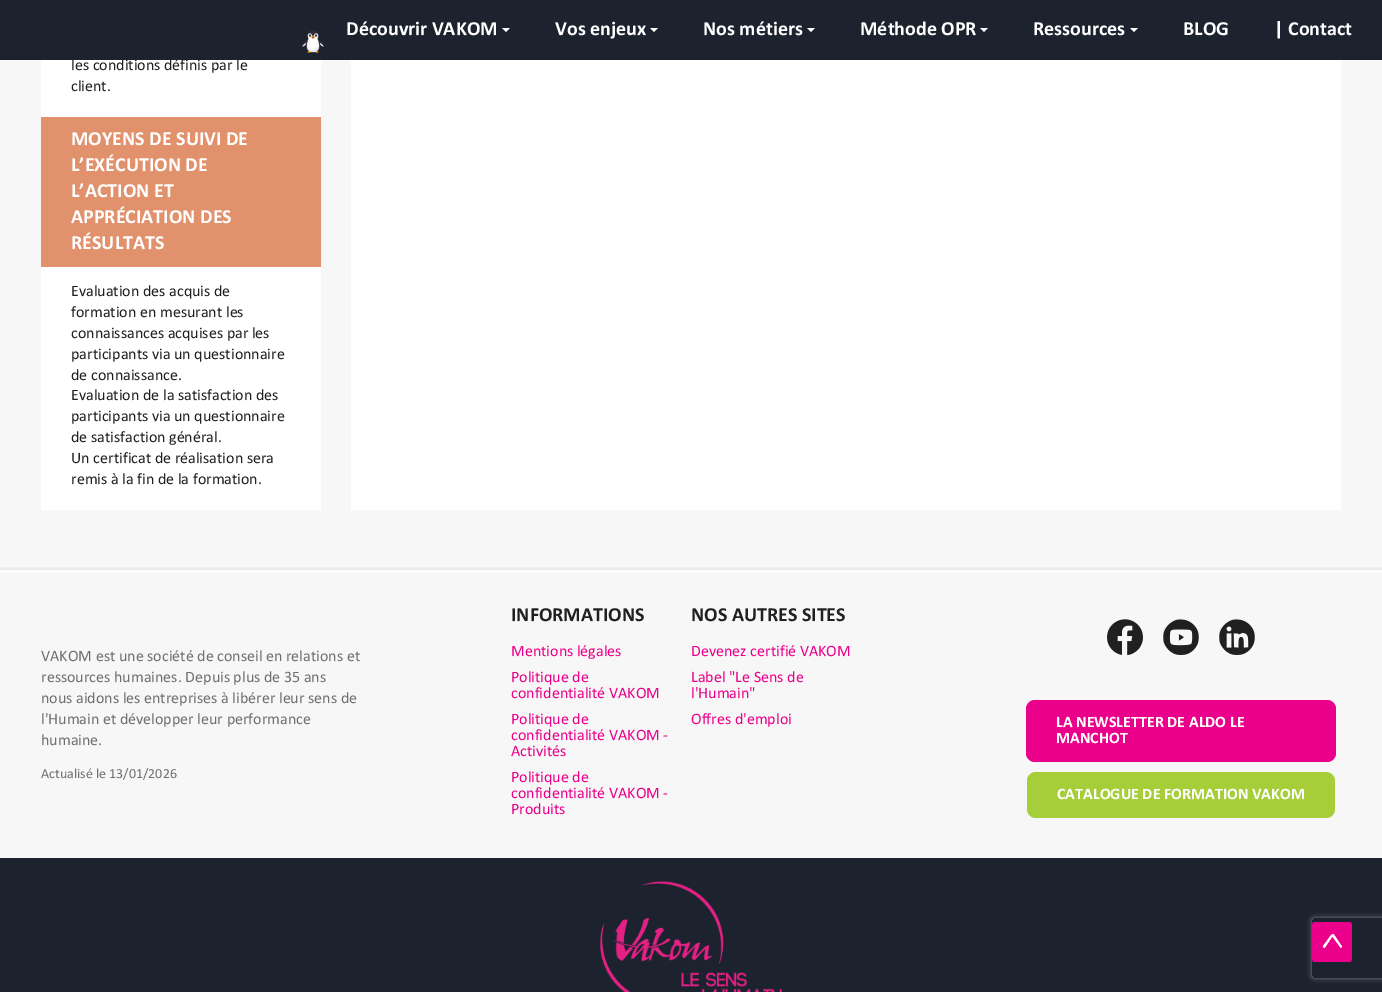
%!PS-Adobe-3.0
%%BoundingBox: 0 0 1382 992
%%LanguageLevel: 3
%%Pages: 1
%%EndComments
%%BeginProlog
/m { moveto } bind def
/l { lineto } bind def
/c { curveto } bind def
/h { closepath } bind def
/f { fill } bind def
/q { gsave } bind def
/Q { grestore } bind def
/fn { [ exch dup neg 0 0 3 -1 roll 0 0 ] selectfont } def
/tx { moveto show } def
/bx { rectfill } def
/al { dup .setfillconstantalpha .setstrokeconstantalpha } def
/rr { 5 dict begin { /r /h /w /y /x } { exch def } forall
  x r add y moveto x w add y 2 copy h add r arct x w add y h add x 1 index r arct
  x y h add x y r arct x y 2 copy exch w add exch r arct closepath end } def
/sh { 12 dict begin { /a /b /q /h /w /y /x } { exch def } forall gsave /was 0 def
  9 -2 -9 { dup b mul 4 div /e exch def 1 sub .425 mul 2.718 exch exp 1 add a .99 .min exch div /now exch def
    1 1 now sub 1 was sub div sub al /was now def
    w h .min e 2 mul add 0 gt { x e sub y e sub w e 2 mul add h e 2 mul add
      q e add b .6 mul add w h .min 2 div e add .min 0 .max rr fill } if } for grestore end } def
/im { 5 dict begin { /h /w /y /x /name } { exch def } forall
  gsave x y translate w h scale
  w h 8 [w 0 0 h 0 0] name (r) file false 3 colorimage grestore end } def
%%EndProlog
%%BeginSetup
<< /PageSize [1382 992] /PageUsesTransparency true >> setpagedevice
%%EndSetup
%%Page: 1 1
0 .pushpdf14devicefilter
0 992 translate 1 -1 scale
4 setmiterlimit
0.969 setgray
0 0 1382 992 bx
1 setgray
41 60 280 450 bx
/Calibri-Regular 16 fn
0.125 setgray
(les conditions définis par le) 71 70 tx
0.11 0.137 0.184 setrgbcolor
0 0 1382 60 bx
(image0.raw) 302 30 22 23 im
/Calibri-Bold 20 fn
1 setgray
(Découvrir VAKOM) 346 35 tx
502 28 m 510 28 l 506 32 l h f
(Vos enjeux) 555 35 tx
650 28 m 658 28 l 654 32 l h f
(Nos métiers) 703 35 tx
807 28 m 815 28 l 811 32 l h f
(Méthode OPR) 860 35 tx
980 28 m 988 28 l 984 32 l h f
(Ressources) 1033 35 tx
1130 28 m 1138 28 l 1134 32 l h f
(BLOG) 1183 35 tx
(| Contact) 1274 35 tx
/Calibri-Regular 16 fn
0.125 setgray
(client.) 71 91 tx
0.882 0.569 0.424 setrgbcolor
41 117 280 150 bx
/Calibri-Bold 20 fn
1 setgray
(MOYENS DE SUIVI DE) 71 145 tx
(L’EXÉCUTION DE) 71 171 tx
(L’ACTION ET) 71 197 tx
(APPRÉCIATION DES) 71 223 tx
(RÉSULTATS) 71 249 tx
/Calibri-Regular 16 fn
0.125 setgray
(Evaluation des acquis de) 71 296 tx
(formation en mesurant les) 71 317 tx
(connaissances acquises par les) 71 338 tx
(participants via un questionnaire) 71 359 tx
(de connaissance.) 71 380 tx
(Evaluation de la satisfaction des) 71 400 tx
(participants via un questionnaire) 71 421 tx
(de satisfaction général.) 71 442 tx
(Un certificat de réalisation sera) 71 463 tx
(remis à la fin de la formation.) 71 484 tx
1 setgray
351 60 990 450 bx
q
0 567 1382 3 rectclip
0 setgray
0 573 1382 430 0 3.5 0.4 sh
Q
0 570 1382 3 bx
0.439 setgray
(VAKOM est une société de conseil en relations et) 41 661 tx
(ressources humaines. Depuis plus de 35 ans) 41 682 tx
(nous aidons les entreprises à libérer leur sens de) 41 703 tx
(l'Humain et développer leur performance) 41 724 tx
(humaine.) 41 745 tx
/Calibri-Regular 14 fn
(Actualisé le 13/01/2026) 41 778 tx
/Calibri-Bold 20 fn
0.125 setgray
(INFORMATIONS) 511 621 tx
/Calibri-Regular 16 fn
0.922 0 0.549 setrgbcolor
(Mentions légales) 511 656 tx
(Politique de) 511 682 tx
(confidentialité VAKOM) 511 698 tx
(Politique de) 511 724 tx
(confidentialité VAKOM -) 511 740 tx
(Activités) 511 756 tx
(Politique de) 511 782 tx
(confidentialité VAKOM -) 511 798 tx
(Produits) 511 814 tx
/Calibri-Bold 20 fn
0.125 setgray
(NOS AUTRES SITES) 691 621 tx
/Calibri-Regular 16 fn
0.922 0 0.549 setrgbcolor
(Devenez certifié VAKOM) 691 656 tx
(Label "Le Sens de) 691 682 tx
(l'Humain") 691 698 tx
(Offres d'emploi) 691 724 tx
(image1.raw) 1107 619 36 37 im
(image2.raw) 1163 619 36 36 im
(image3.raw) 1219 619 36 36 im
1026 700 310 62 9 rr f
/Calibri-Bold 16 fn
1 setgray
(LA NEWSLETTER DE ALDO LE) 1056 727 tx
(MANCHOT) 1056 743 tx
0.651 0.808 0.224 setrgbcolor
1027 772 308 46 9 rr f
1 setgray
(CATALOGUE DE FORMATION VAKOM) 1057 799 tx
0.11 0.137 0.184 setrgbcolor
0 858 1382 134 bx
(image4.raw) 599 881 184 111 im
q
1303 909 m 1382 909 l 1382 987 l 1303 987 l h 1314 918 m 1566 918 l 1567 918 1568 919 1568 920 c 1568 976 l 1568 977 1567 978 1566 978 c 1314 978 l 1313 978 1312 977 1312 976 c 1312 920 l 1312 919 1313 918 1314 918 c h eoclip newpath
0.502 setgray
1312 918 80 60 2 2.5 1 sh
Q
0.922 0 0.549 setrgbcolor
1312 922 40 40 3 rr f
1 setgray
1323 946 m 1331.5 934.5 l 1332 934 1333 934.5 1333 935.5 c 1325 947.5 l 1324 948.5 1322.5 947 1323 946 c h f
1334 934.5 m 1342 946.5 l 1342 947.5 1341.5 948 1340.5 947.5 c 1332 936 l 1331.5 935 1333 933.5 1334 934.5 c h f
.poppdf14devicefilter showpage
%%EOF
